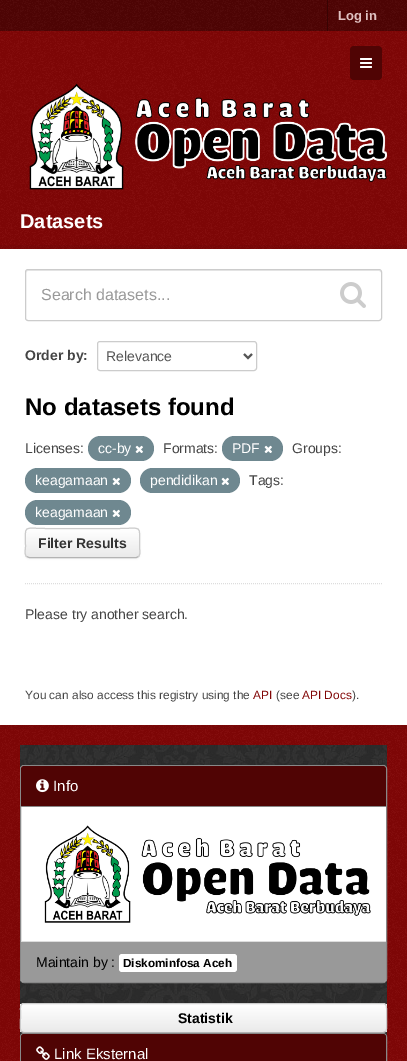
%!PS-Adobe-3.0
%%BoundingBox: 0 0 407 1061
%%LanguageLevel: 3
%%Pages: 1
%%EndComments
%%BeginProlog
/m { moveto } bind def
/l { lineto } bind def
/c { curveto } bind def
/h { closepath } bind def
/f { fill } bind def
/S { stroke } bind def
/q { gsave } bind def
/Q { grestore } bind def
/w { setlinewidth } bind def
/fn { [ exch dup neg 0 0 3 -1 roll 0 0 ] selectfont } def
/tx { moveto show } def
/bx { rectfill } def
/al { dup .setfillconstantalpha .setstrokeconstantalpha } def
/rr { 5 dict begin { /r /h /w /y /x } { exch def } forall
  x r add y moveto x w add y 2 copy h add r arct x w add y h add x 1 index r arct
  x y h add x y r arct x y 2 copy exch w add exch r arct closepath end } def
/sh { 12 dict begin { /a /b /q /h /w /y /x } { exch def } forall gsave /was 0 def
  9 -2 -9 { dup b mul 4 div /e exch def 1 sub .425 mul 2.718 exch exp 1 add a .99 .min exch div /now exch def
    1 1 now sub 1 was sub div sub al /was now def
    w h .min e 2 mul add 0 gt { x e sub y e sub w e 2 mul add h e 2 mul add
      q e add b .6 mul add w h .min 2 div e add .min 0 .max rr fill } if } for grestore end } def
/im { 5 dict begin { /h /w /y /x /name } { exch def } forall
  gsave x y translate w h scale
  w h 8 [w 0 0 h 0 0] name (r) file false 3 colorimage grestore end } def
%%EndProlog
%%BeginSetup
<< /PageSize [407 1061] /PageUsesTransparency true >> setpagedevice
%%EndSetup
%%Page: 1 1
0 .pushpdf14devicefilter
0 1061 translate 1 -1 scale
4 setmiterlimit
0.506 0.024 0.024 setrgbcolor
0 0 407 1061 bx
(image0.raw) 0 203 407 858 im
0.314 0.016 0.016 setrgbcolor
0 0 407 31 bx
(image1.raw) 0 0 407 31 im
0.22 0.012 0.012 setrgbcolor
327 0 1 31 bx
/LiberationSans-Bold 13 fn
0.878 0.757 0.757 setrgbcolor
(Log in) 338 20 tx
(image2.raw) 0 31 407 172 im
0.314 0.016 0.016 setrgbcolor
350 46 32 34 4 rr f
(image3.raw) 360 58 12 10 im
(image4.raw) 29 83 358 107 im
/LiberationSans-Bold 20 fn
1 setgray
(Datasets) 20 228 tx
0.05 al
0 setgray
4 w
-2 247 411 480 rectstroke
1 al
1 setgray
0 249 407 476 bx
0.867 setgray
1 w
[1 1] 0 setdash
25 583.5 m 382 583.5 l S
0.925 setgray
28 271 m 379 271 l 380 271 381 272 381 273 c 381 272 381 270 379 270 c 28 270 l 26 270 26 272 26 273 c 26 272 27 271 28 271 c h f
0.8 setgray
[] 0 setdash
25.5 269.5 356 51 2.5 rr S
/LiberationSans-Regular 16 fn
0.6 setgray
(Search datasets...) 41 300 tx
(image5.raw) 340 282 26 26 im
/LiberationSans-Bold 14 fn
0.267 setgray
(Order by:) 25 360 tx
0.8 setgray
97.5 341.5 159 29 2.5 rr S
0.333 setgray
2 w
244 354 m 248 358 l 252 354 l S
/LiberationSans-Regular 14 fn
(Relevance) 106 361 tx
/LiberationSans-Bold 24 fn
0 setgray
(No datasets found) 25 415 tx
/LiberationSans-Regular 14 fn
0.267 setgray
(Licenses:) 25 453 tx
0.435 0.533 0.565 setrgbcolor
88 436 66 25 12.5 rr f
1 setgray
(cc-by) 98 453 tx
(image6.raw) 135 445 8 8 im
0.267 setgray
(Formats:) 163 453 tx
0.435 0.533 0.565 setrgbcolor
222 436 61 25 12.5 rr f
1 setgray
(PDF) 232 453 tx
(image6.raw) 264 445 8 8 im
0.267 setgray
(Groups:) 292 453 tx
0.435 0.533 0.565 setrgbcolor
25 468 106 25 12.5 rr f
1 setgray
(keagamaan) 35 485 tx
(image6.raw) 112 477 8 8 im
0.435 0.533 0.565 setrgbcolor
140 468 100 25 12.5 rr f
1 setgray
(pendidikan) 150 485 tx
(image6.raw) 221 477 8 8 im
0.267 setgray
(Tags:) 249 485 tx
0.435 0.533 0.565 setrgbcolor
25 500 106 25 12.5 rr f
1 setgray
(keagamaan) 35 517 tx
(image6.raw) 112 509 8 8 im
0 setgray
25 529 115 30 4 1 0.05 sh
0.969 setgray
25 528 115 30 4 rr f
q
25 528 115 30 4 rr clip newpath
q 25 529 m 140 529 l 140 557 l 25 557 l h clip newpath
<< /ShadingType 2 /ColorSpace /DeviceRGB /Coords [83 529 83 557] /Extend [true true] /Function << /FunctionType 2 /Domain [0 1] /C0 [1 1 1] /C1 [0.918 0.918 0.918] /N 1 >> >> shfill Q
Q
0.702 setgray
1 w
138.5 556.5 m 136.5 557.5 l 47 557.5 l 29 557.5 l 26.5 556.5 l S
0.8 setgray
26.5 556.5 m 24 554 25.5 549.5 25.5 546.5 c 25.5 524 22 528.5 47 528.5 c 118 528.5 l 143 528.5 139.5 524 139.5 546.5 c 139.5 549.5 141 554 138.5 556.5 c S
/LiberationSans-Bold 14 fn
0.2 setgray
(Filter Results) 38 548 tx
/LiberationSans-Regular 14 fn
0.267 setgray
(Please try another search.) 25 619 tx
/LiberationSans-Regular 11.9 fn
(You can also access this registry using the) 25 699 tx
0.506 0.024 0.024 setrgbcolor
(API) 253 699 tx
0.267 setgray
(\(see) 276 699 tx
0.506 0.024 0.024 setrgbcolor
(API Docs) 302 699 tx
0.267 setgray
(\).) 352 699 tx
0 setgray
20 745 367 292 bx
(image7.raw) 20 745 367 292 im
1 setgray
20.5 765.5 366 217 3.5 rr q f Q
0.533 setgray
S
0.314 0.016 0.016 setrgbcolor
24 766 m 383 766 l 384.5 766 386 767.5 386 769 c 386 807 l 21 807 l 21 769 l 21 767.5 22.5 766 24 766 c h f
0.533 setgray
21 806 365 1 bx
(image8.raw) 36 779 13 14 im
/LiberationSans-Regular 15 fn
1 setgray
(Info) 53 791 tx
(image9.raw) 44 825 327 98 im
0.6 setgray
21 941 m 386 941 l 386 979 l 386 980.5 384.5 982 383 982 c 24 982 l 22.5 982 21 980.5 21 979 c h f
0.867 setgray
21 941 365 1 bx
/LiberationSans-Regular 14 fn
0 setgray
(Maintain by :) 36 967 tx
1 setgray
119 954 118 18 3 rr f
/LiberationSans-Bold 11.75 fn
0 setgray
(Diskominfosa Aceh) 123 967 tx
q
20 1003 367 30 4 rr clip newpath
q 20 1004 m 387 1004 l 387 1032 l 20 1032 l h clip newpath
<< /ShadingType 2 /ColorSpace /DeviceRGB /Coords [204 1004 204 1032] /Extend [true true] /Function << /FunctionType 2 /Domain [0 1] /C0 [1 1 1] /C1 [0.918 0.918 0.918] /N 1 >> >> shfill Q
Q
0.702 setgray
385.5 1031.5 m 385 1032 384 1032.5 383 1032.5 c 24 1032.5 l 23 1032.5 22 1032 21.5 1031.5 c S
0.8 setgray
21.5 1031.5 m 19.5 1029.5 20.5 1021 20.5 1018 c 20.5 1010.5 l 20.5 1008 20 1004.5 23 1003.5 c 384 1003.5 l 387 1004.5 386.5 1008 386.5 1010.5 c 386.5 1018 l 386.5 1021 387.5 1029.5 385.5 1031.5 c S
/LiberationSans-Bold 14 fn
0 setgray
(Statistik) 178 1023 tx
0.533 setgray
20.5 1033.5 366 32 3.5 rr S
0.314 0.016 0.016 setrgbcolor
24 1034 m 383 1034 l 384.5 1034 386 1035.5 386 1037 c 386 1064 l 21 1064 l 21 1037 l 21 1035.5 22.5 1034 24 1034 c h f
(image10.raw) 36 1046 14 14 im
/LiberationSans-Regular 15 fn
1 setgray
(Link Eksternal) 54 1059 tx
.poppdf14devicefilter showpage
%%EOF
